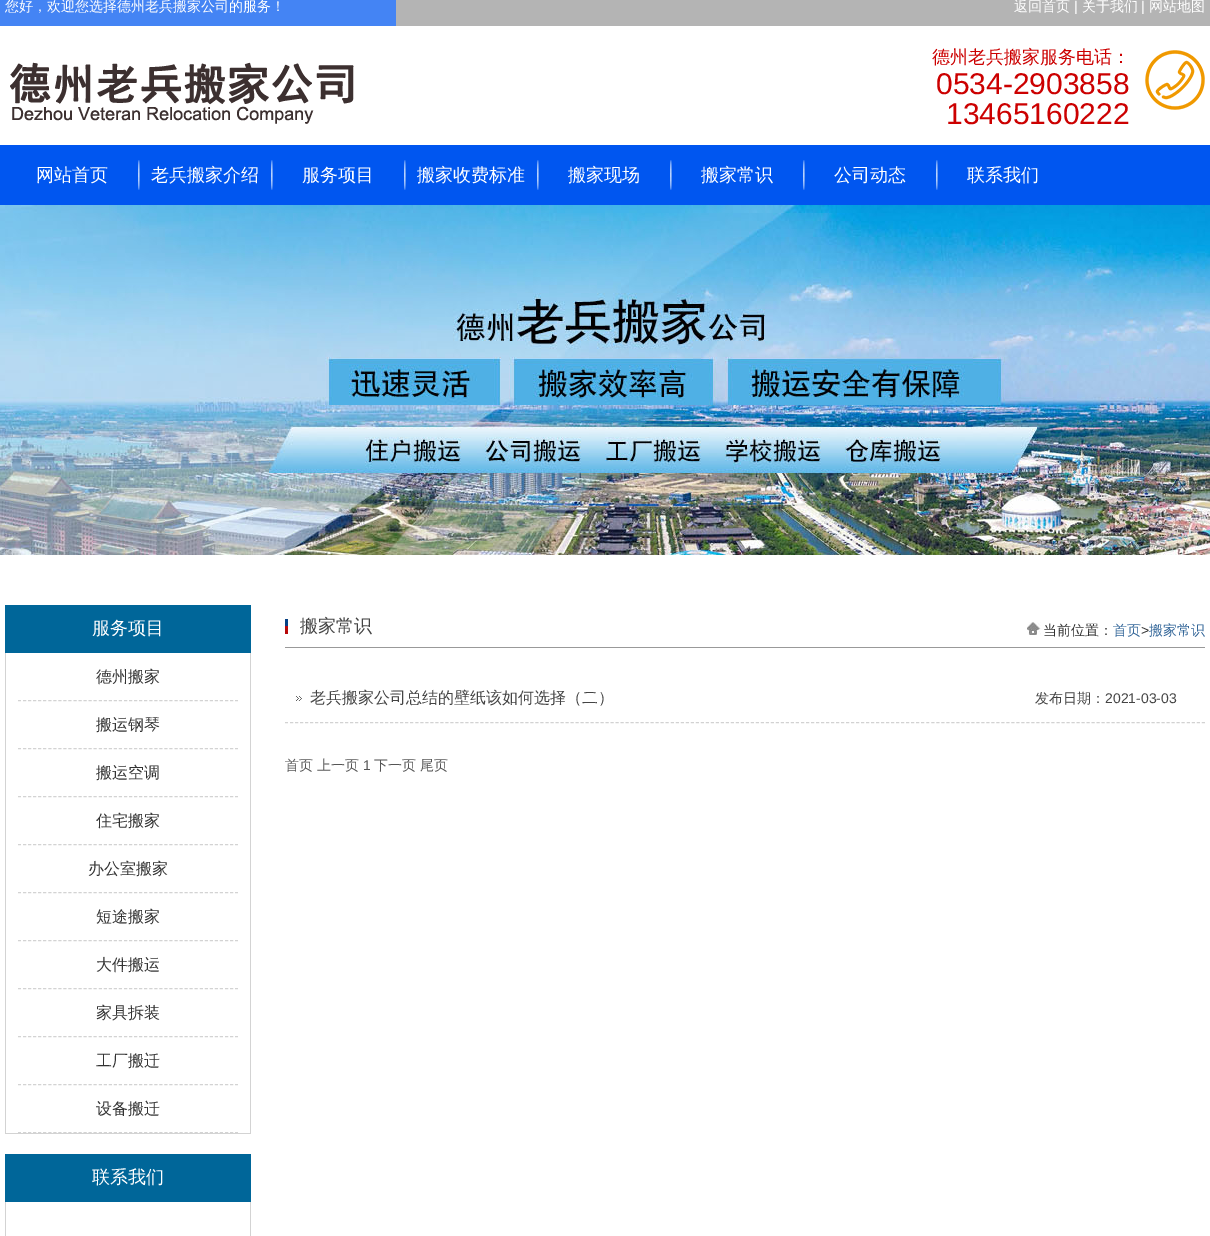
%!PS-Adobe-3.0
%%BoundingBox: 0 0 1210 1236
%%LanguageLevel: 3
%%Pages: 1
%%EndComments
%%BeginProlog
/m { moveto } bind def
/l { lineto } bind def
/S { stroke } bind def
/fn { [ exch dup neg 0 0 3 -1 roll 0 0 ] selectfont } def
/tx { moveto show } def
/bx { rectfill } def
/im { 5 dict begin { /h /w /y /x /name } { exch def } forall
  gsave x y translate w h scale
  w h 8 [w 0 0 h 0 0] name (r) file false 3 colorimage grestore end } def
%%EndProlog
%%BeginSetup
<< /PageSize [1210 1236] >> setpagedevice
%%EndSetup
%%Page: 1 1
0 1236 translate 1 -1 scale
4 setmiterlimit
1 setgray
0 0 1210 1236 bx
(image0.raw) 0 0 1210 26 im
/WenQuanYiZenHei-Medium 14 fn
(您好，欢迎您选择德州老兵搬家公司的服务！) 5 11 tx
(返回首页) 1014 11 tx
/LiberationSans-Regular 14 fn
(|) 1074 11 tx
/WenQuanYiZenHei-Medium 14 fn
(关于我们) 1082 11 tx
/LiberationSans-Regular 14 fn
(|) 1141 11 tx
/WenQuanYiZenHei-Medium 14 fn
(网站地图) 1149 11 tx
(image1.raw) 10 62 344 62 im
(image2.raw) 1145 50 60 60 im
/WenQuanYiZenHei-Medium 18 fn
0.8 0 0 setrgbcolor
(德州老兵搬家服务电话：) 932 63 tx
/LiberationSans-Regular 30 fn
(0534-2903858) 936 94 tx
(13465160222) 946 124 tx
0 0.337 0.941 setrgbcolor
0 145 1210 60 bx
/WenQuanYiZenHei-Medium 18 fn
1 setgray
(网站首页) 36 181 tx
(image3.raw) 138 160 2 30 im
(老兵搬家介绍) 151 181 tx
(image3.raw) 271 160 2 30 im
(服务项目) 302 181 tx
(image3.raw) 404 160 2 30 im
(搬家收费标准) 417 181 tx
(image3.raw) 537 160 2 30 im
(搬家现场) 568 181 tx
(image3.raw) 670 160 2 30 im
(搬家常识) 701 181 tx
(image3.raw) 803 160 2 30 im
(公司动态) 834 181 tx
(image3.raw) 936 160 2 30 im
(联系我们) 967 181 tx
(image4.raw) 0 205 1210 350 im
0 0.4 0.6 setrgbcolor
5 605 246 48 bx
1 setgray
(服务项目) 92 634 tx
0.827 setgray
250 653 1 481 bx
5 1133 246 1 bx
5 653 1 481 bx
[3 2.05] 0 setdash
18 700.5 m 238 700.5 l S
/WenQuanYiZenHei-Medium 16 fn
0.2 setgray
(德州搬家) 96 682 tx
0.827 setgray
18 748.5 m 238 748.5 l S
0.2 setgray
(搬运钢琴) 96 730 tx
0.827 setgray
18 796.5 m 238 796.5 l S
0.2 setgray
(搬运空调) 96 778 tx
0.827 setgray
18 844.5 m 238 844.5 l S
0.2 setgray
(住宅搬家) 96 826 tx
0.827 setgray
18 892.5 m 238 892.5 l S
0.2 setgray
(办公室搬家) 88 874 tx
0.827 setgray
18 940.5 m 238 940.5 l S
0.2 setgray
(短途搬家) 96 922 tx
0.827 setgray
18 988.5 m 238 988.5 l S
0.2 setgray
(大件搬运) 96 970 tx
0.827 setgray
18 1036.5 m 238 1036.5 l S
0.2 setgray
(家具拆装) 96 1018 tx
0.827 setgray
18 1084.5 m 238 1084.5 l S
0.2 setgray
(工厂搬迁) 96 1066 tx
0.827 setgray
18 1132.5 m 238 1132.5 l S
0.2 setgray
(设备搬迁) 96 1114 tx
0 0.4 0.6 setrgbcolor
5 1154 246 48 bx
/WenQuanYiZenHei-Medium 18 fn
1 setgray
(联系我们) 92 1183 tx
0.827 setgray
250 1202 1 34 bx
5 1202 1 34 bx
0.6 setgray
285 647 920 1 bx
(image5.raw) 285 619 3 15 im
0.267 setgray
(搬家常识) 300 632 tx
(image6.raw) 1027 622 14 13 im
/WenQuanYiZenHei-Medium 14 fn
0.2 setgray
(当前位置：) 1043 635 tx
0.2 0.4 0.6 setrgbcolor
(首页) 1113 635 tx
/LiberationSans-Regular 14 fn
0.2 setgray
(>) 1141 635 tx
/WenQuanYiZenHei-Medium 14 fn
0.2 0.4 0.6 setrgbcolor
(搬家常识) 1149 635 tx
0.824 setgray
[3 2.01] 0 setdash
285 722.5 m 1205 722.5 l S
(image7.raw) 295 696 7 5 im
/WenQuanYiZenHei-Medium 16 fn
0.267 setgray
(老兵搬家公司总结的壁纸该如何选择（二）) 310 703 tx
/WenQuanYiZenHei-Medium 14 fn
(发布日期：) 1035 703 tx
/LiberationSans-Regular 14 fn
(2021-03-03) 1105 703 tx
/WenQuanYiZenHei-Medium 14 fn
0.333 setgray
(首页) 285 770 tx
(上一页) 317 770 tx
/LiberationSans-Regular 14 fn
(1) 363 770 tx
/WenQuanYiZenHei-Medium 14 fn
(下一页) 374 770 tx
(尾页) 420 770 tx
showpage
%%EOF
